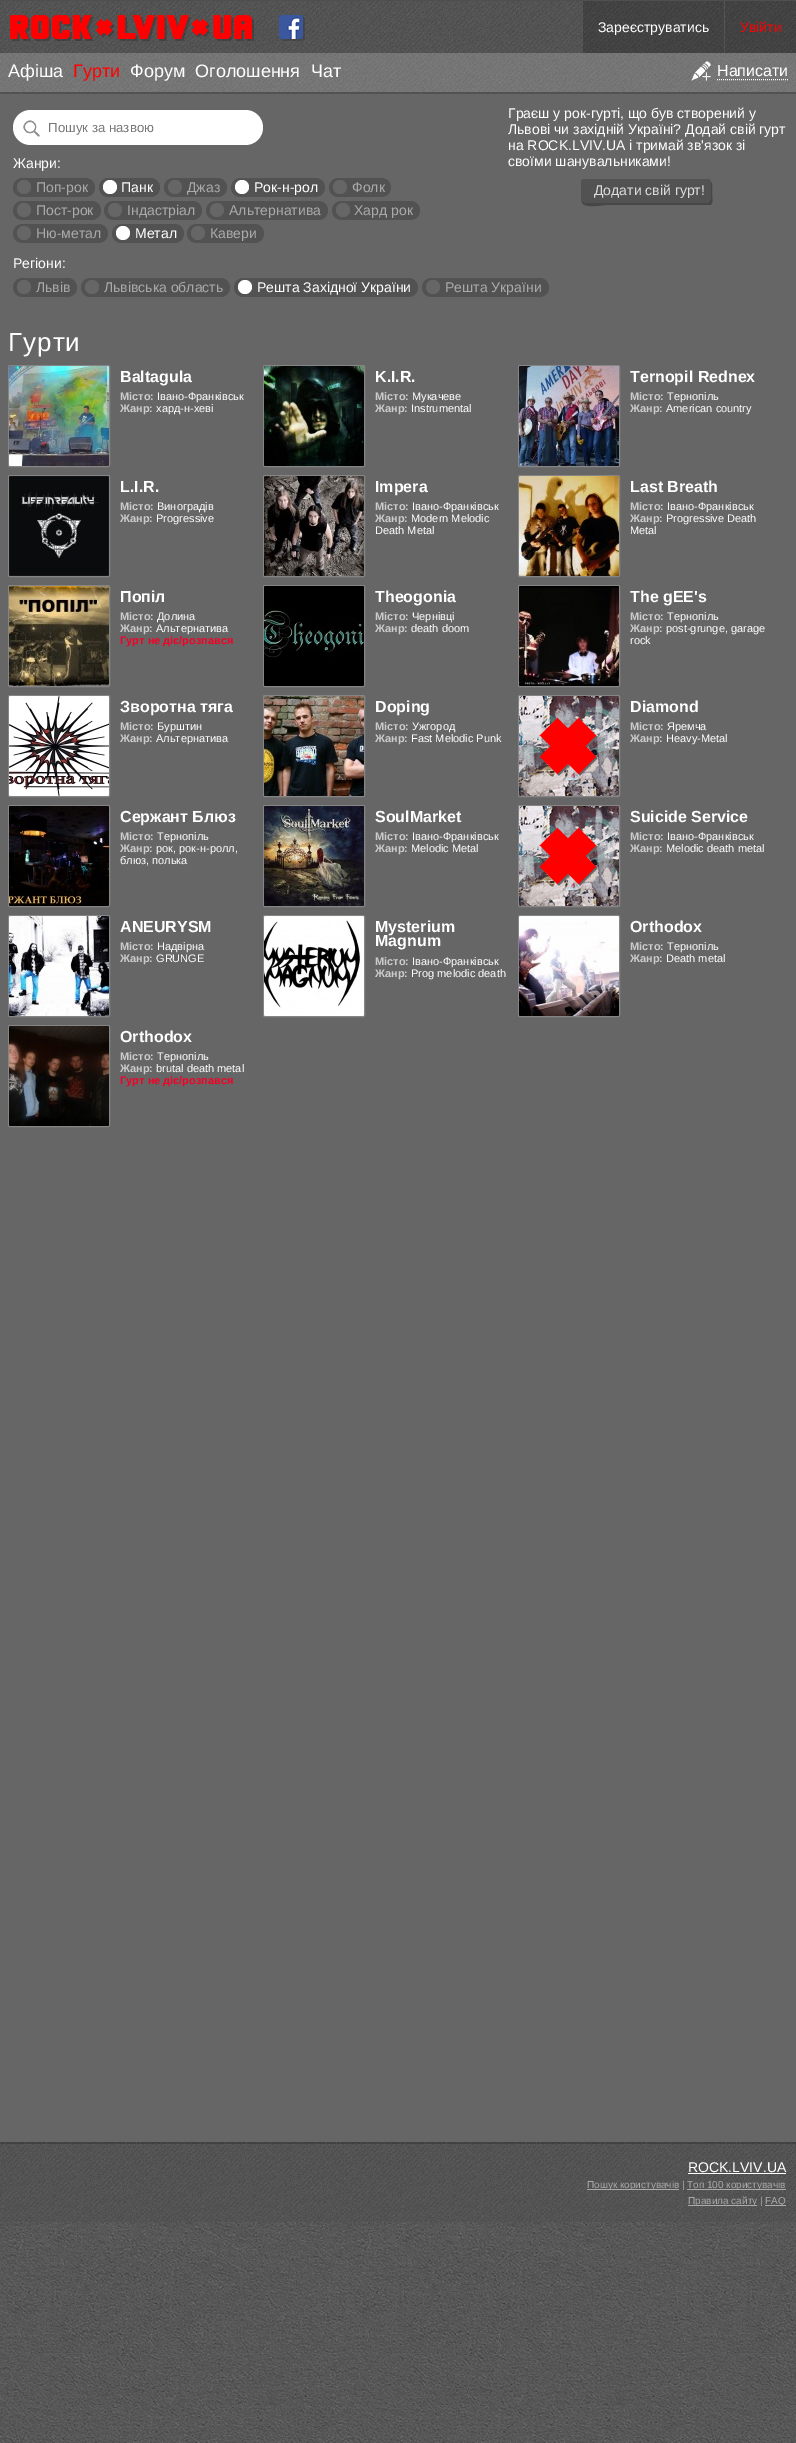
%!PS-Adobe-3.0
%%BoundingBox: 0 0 796 2443
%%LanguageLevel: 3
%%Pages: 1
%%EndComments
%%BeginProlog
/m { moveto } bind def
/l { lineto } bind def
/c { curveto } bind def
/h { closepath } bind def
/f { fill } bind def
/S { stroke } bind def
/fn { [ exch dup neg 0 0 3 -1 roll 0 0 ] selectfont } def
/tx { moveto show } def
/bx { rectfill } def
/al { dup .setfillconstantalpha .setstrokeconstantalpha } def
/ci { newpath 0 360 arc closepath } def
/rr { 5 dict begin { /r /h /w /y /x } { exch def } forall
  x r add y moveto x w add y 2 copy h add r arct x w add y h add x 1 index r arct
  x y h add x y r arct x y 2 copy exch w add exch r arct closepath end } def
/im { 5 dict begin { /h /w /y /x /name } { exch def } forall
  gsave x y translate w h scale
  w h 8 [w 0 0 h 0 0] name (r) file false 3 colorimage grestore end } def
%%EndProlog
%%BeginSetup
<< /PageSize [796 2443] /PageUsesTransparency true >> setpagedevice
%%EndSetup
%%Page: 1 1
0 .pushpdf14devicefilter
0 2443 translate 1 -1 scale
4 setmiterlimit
1 setgray
0 0 796 2443 bx
(image0.raw) 0 2222 796 221 im
0.4 setgray
0 92 796 2050 bx
0.2 al
0 setgray
0 92 796 2 bx
1 al
0.31 setgray
0 0 796 1 bx
(image1.raw) 0 1 796 91 im
(image2.raw) 10 15 244 26 im
(image3.raw) 279 15 26 26 im
0.2 al
0 setgray
583 1 141 52 bx
/LiberationSans-Regular 14 fn
1 al
1 setgray
(Зареєструватись) 598 32 tx
0.2 al
0 setgray
725 1 71 52 bx
1 al
1 0 0 setrgbcolor
(Увійти) 740 32 tx
0.2 al
1 setgray
0 53 796 39 bx
/LiberationSans-Regular 18 fn
1 al
(Афіша) 8 77 tx
1 0 0 setrgbcolor
(Гурти) 73 77 tx
1 setgray
(Форум) 130 77 tx
(Оголошення) 195 77 tx
(Чат) 311 77 tx
(image4.raw) 691 61 20 20 im
/LiberationSans-Regular 16 fn
(Написати) 717 76 tx
[1 1] 0 setdash
717 79.5 m 788 79.5 l S
13 110 250 35 17.5 rr f
(image5.raw) 23 120 17 17 im
/LiberationSans-Regular 13.25 fn
0.459 setgray
(Пошук за назвою) 48 132 tx
/LiberationSans-Regular 14 fn
1 setgray
(Жанри:) 13 168 tx
0.322 setgray
13 178 82 19 9.5 rr f
0.4 setgray
24 187 7 ci f
0.667 setgray
(Поп-рок) 36 192 tx
0.322 setgray
99 178 61 19 9.5 rr f
1 setgray
110 187 7 ci f
(Панк) 121 192 tx
0.322 setgray
164 178 63 19 9.5 rr f
0.4 setgray
175 187 7 ci f
0.667 setgray
(Джаз) 187 192 tx
0.322 setgray
231 178 94 19 9.5 rr f
1 setgray
242 187 7 ci f
(Рок-н-рол) 254 192 tx
0.322 setgray
329 178 62 19 9.5 rr f
0.4 setgray
340 187 7 ci f
0.667 setgray
(Фолк) 352 192 tx
0.322 setgray
13 201 88 19 9.5 rr f
0.4 setgray
24 210 7 ci f
0.667 setgray
(Пост-рок) 36 215 tx
0.322 setgray
104 201 98 19 9.5 rr f
0.4 setgray
115 210 7 ci f
0.667 setgray
(Індастріал) 127 215 tx
0.322 setgray
206 201 122 19 9.5 rr f
0.4 setgray
217 210 7 ci f
0.667 setgray
(Альтернатива) 229 215 tx
0.322 setgray
332 201 88 19 9.5 rr f
0.4 setgray
343 210 7 ci f
0.667 setgray
(Хард рок) 354 215 tx
0.322 setgray
13 224 95 19 9.5 rr f
0.4 setgray
24 233 7 ci f
0.667 setgray
(Ню-метал) 36 238 tx
0.322 setgray
112 224 72 19 9.5 rr f
1 setgray
123 233 7 ci f
(Метал) 135 238 tx
0.322 setgray
187 224 77 19 9.5 rr f
0.4 setgray
198 233 7 ci f
0.667 setgray
(Кавери) 210 238 tx
1 setgray
(Регіони:) 13 268 tx
0.322 setgray
13 278 64 19 9.5 rr f
0.4 setgray
24 287 7 ci f
0.667 setgray
(Львів) 36 292 tx
0.322 setgray
81 278 149 19 9.5 rr f
0.4 setgray
92 287 7 ci f
0.667 setgray
(Львівська область) 104 292 tx
0.322 setgray
234 278 184 19 9.5 rr f
1 setgray
245 287 7 ci f
(Решта Західної України) 257 292 tx
0.322 setgray
422 278 127 19 9.5 rr f
0.4 setgray
433 287 7 ci f
0.667 setgray
(Решта України) 445 292 tx
1 setgray
(Граєш у рок-гурті, що був створений у) 508 118 tx
(Львові чи західній Україні? Додай свій гурт) 508 134 tx
(на ROCK.LVIV.UA і тримай зв'язок зі) 508 150 tx
(своїми шанувальниками!) 508 166 tx
0.278 setgray
582 202 m 583 209 603 205 606 205 c 710 205 l 714 204 712 196 712 193 c 712 191 713 184 711 182 c 711 194 l 711 196 712 203 708 203 c 584 203 l h f
0.2 al
0 setgray
581 179 130 24 3 rr f
1 al
0.867 setgray
(Додати свій гурт!) 594 195 tx
/LiberationSans-Regular 26 fn
1 setgray
8 351 m 1 0 (Гурти) ashow
0.522 setgray
[] 0 setdash
8.5 365.5 101 101 1.5 rr S
(image6.raw) 9 366 100 100 im
/LiberationSans-Bold 16 fn
1 setgray
(Baltagula) 120 382 tx
/LiberationSans-Bold 11 fn
0.8 setgray
(Місто:) 120 400 tx
/LiberationSans-Regular 11 fn
1 setgray
(Івано-Франківськ) 157 400 tx
/LiberationSans-Bold 11 fn
0.8 setgray
(Жанр:) 120 412 tx
/LiberationSans-Regular 11 fn
1 setgray
(хард-н-хеві) 156 412 tx
0.522 setgray
263.5 365.5 101 101 1.5 rr S
(image7.raw) 264 366 100 100 im
/LiberationSans-Bold 16 fn
1 setgray
(K.I.R.) 375 382 tx
/LiberationSans-Bold 11 fn
0.8 setgray
(Місто:) 375 400 tx
/LiberationSans-Regular 11 fn
1 setgray
(Мукачеве) 412 400 tx
/LiberationSans-Bold 11 fn
0.8 setgray
(Жанр:) 375 412 tx
/LiberationSans-Regular 11 fn
1 setgray
(Instrumental) 411 412 tx
0.522 setgray
518.5 365.5 101 101 1.5 rr S
(image8.raw) 519 366 100 100 im
/LiberationSans-Bold 16 fn
1 setgray
(Ternopil Rednex) 630 382 tx
/LiberationSans-Bold 11 fn
0.8 setgray
(Місто:) 630 400 tx
/LiberationSans-Regular 11 fn
1 setgray
(Тернопіль) 667 400 tx
/LiberationSans-Bold 11 fn
0.8 setgray
(Жанр:) 630 412 tx
/LiberationSans-Regular 11 fn
1 setgray
(American country) 666 412 tx
0.522 setgray
8.5 475.5 101 101 1.5 rr S
(image9.raw) 9 476 100 100 im
/LiberationSans-Bold 16 fn
1 setgray
(L.I.R.) 120 492 tx
/LiberationSans-Bold 11 fn
0.8 setgray
(Місто:) 120 510 tx
/LiberationSans-Regular 11 fn
1 setgray
(Виноградів) 157 510 tx
/LiberationSans-Bold 11 fn
0.8 setgray
(Жанр:) 120 522 tx
/LiberationSans-Regular 11 fn
1 setgray
(Progressive) 156 522 tx
0.522 setgray
263.5 475.5 101 101 1.5 rr S
(image10.raw) 264 476 100 100 im
/LiberationSans-Bold 16 fn
1 setgray
(Impera) 375 492 tx
/LiberationSans-Bold 11 fn
0.8 setgray
(Місто:) 375 510 tx
/LiberationSans-Regular 11 fn
1 setgray
(Івано-Франківськ) 412 510 tx
/LiberationSans-Bold 11 fn
0.8 setgray
(Жанр:) 375 522 tx
/LiberationSans-Regular 11 fn
1 setgray
(Modern Melodic) 411 522 tx
(Death Metal) 375 534 tx
0.522 setgray
518.5 475.5 101 101 1.5 rr S
(image11.raw) 519 476 100 100 im
/LiberationSans-Bold 16 fn
1 setgray
(Last Breath) 630 492 tx
/LiberationSans-Bold 11 fn
0.8 setgray
(Місто:) 630 510 tx
/LiberationSans-Regular 11 fn
1 setgray
(Івано-Франківськ) 667 510 tx
/LiberationSans-Bold 11 fn
0.8 setgray
(Жанр:) 630 522 tx
/LiberationSans-Regular 11 fn
1 setgray
(Progressive Death) 666 522 tx
(Metal) 630 534 tx
0.522 setgray
8.5 585.5 101 101 1.5 rr S
(image12.raw) 9 586 100 100 im
/LiberationSans-Bold 16 fn
1 setgray
(Попіл) 120 602 tx
/LiberationSans-Bold 11 fn
0.8 setgray
(Місто:) 120 620 tx
/LiberationSans-Regular 11 fn
1 setgray
(Долина) 157 620 tx
/LiberationSans-Bold 11 fn
0.8 setgray
(Жанр:) 120 632 tx
/LiberationSans-Regular 11 fn
1 setgray
(Альтернатива) 156 632 tx
/LiberationSans-Bold 11 fn
0.961 0 0.145 setrgbcolor
(Гурт не діє/розпався) 120 644 tx
0.522 setgray
263.5 585.5 101 101 1.5 rr S
(image13.raw) 264 586 100 100 im
/LiberationSans-Bold 16 fn
1 setgray
(Theogonia) 375 602 tx
/LiberationSans-Bold 11 fn
0.8 setgray
(Місто:) 375 620 tx
/LiberationSans-Regular 11 fn
1 setgray
(Чернівці) 412 620 tx
/LiberationSans-Bold 11 fn
0.8 setgray
(Жанр:) 375 632 tx
/LiberationSans-Regular 11 fn
1 setgray
(death doom) 411 632 tx
0.522 setgray
518.5 585.5 101 101 1.5 rr S
(image14.raw) 519 586 100 100 im
/LiberationSans-Bold 16 fn
1 setgray
(The gEE's) 630 602 tx
/LiberationSans-Bold 11 fn
0.8 setgray
(Місто:) 630 620 tx
/LiberationSans-Regular 11 fn
1 setgray
(Тернопіль) 667 620 tx
/LiberationSans-Bold 11 fn
0.8 setgray
(Жанр:) 630 632 tx
/LiberationSans-Regular 11 fn
1 setgray
(post-grunge, garage) 666 632 tx
(rock) 630 644 tx
0.522 setgray
8.5 695.5 101 101 1.5 rr S
(image15.raw) 9 696 100 100 im
/LiberationSans-Bold 16 fn
1 setgray
(Зворотна тяга) 120 712 tx
/LiberationSans-Bold 11 fn
0.8 setgray
(Місто:) 120 730 tx
/LiberationSans-Regular 11 fn
1 setgray
(Бурштин) 157 730 tx
/LiberationSans-Bold 11 fn
0.8 setgray
(Жанр:) 120 742 tx
/LiberationSans-Regular 11 fn
1 setgray
(Альтернатива) 156 742 tx
0.522 setgray
263.5 695.5 101 101 1.5 rr S
(image16.raw) 264 696 100 100 im
/LiberationSans-Bold 16 fn
1 setgray
(Doping) 375 712 tx
/LiberationSans-Bold 11 fn
0.8 setgray
(Місто:) 375 730 tx
/LiberationSans-Regular 11 fn
1 setgray
(Ужгород) 412 730 tx
/LiberationSans-Bold 11 fn
0.8 setgray
(Жанр:) 375 742 tx
/LiberationSans-Regular 11 fn
1 setgray
(Fast Melodic Punk) 411 742 tx
0.522 setgray
518.5 695.5 101 101 1.5 rr S
(image17.raw) 519 696 100 100 im
/LiberationSans-Bold 16 fn
1 setgray
(Diamond) 630 712 tx
/LiberationSans-Bold 11 fn
0.8 setgray
(Місто:) 630 730 tx
/LiberationSans-Regular 11 fn
1 setgray
(Яремча) 667 730 tx
/LiberationSans-Bold 11 fn
0.8 setgray
(Жанр:) 630 742 tx
/LiberationSans-Regular 11 fn
1 setgray
(Heavy-Metal) 666 742 tx
0.522 setgray
8.5 805.5 101 101 1.5 rr S
(image18.raw) 9 806 100 100 im
/LiberationSans-Bold 16 fn
1 setgray
(Сержант Блюз) 120 822 tx
/LiberationSans-Bold 11 fn
0.8 setgray
(Місто:) 120 840 tx
/LiberationSans-Regular 11 fn
1 setgray
(Тернопіль) 157 840 tx
/LiberationSans-Bold 11 fn
0.8 setgray
(Жанр:) 120 852 tx
/LiberationSans-Regular 11 fn
1 setgray
(рок, рок-н-ролл,) 156 852 tx
(блюз, полька) 120 864 tx
0.522 setgray
263.5 805.5 101 101 1.5 rr S
(image19.raw) 264 806 100 100 im
/LiberationSans-Bold 16 fn
1 setgray
(SoulMarket) 375 822 tx
/LiberationSans-Bold 11 fn
0.8 setgray
(Місто:) 375 840 tx
/LiberationSans-Regular 11 fn
1 setgray
(Івано-Франківськ) 412 840 tx
/LiberationSans-Bold 11 fn
0.8 setgray
(Жанр:) 375 852 tx
/LiberationSans-Regular 11 fn
1 setgray
(Melodic Metal) 411 852 tx
0.522 setgray
518.5 805.5 101 101 1.5 rr S
(image17.raw) 519 806 100 100 im
/LiberationSans-Bold 16 fn
1 setgray
(Suicide Service) 630 822 tx
/LiberationSans-Bold 11 fn
0.8 setgray
(Місто:) 630 840 tx
/LiberationSans-Regular 11 fn
1 setgray
(Івано-Франківськ) 667 840 tx
/LiberationSans-Bold 11 fn
0.8 setgray
(Жанр:) 630 852 tx
/LiberationSans-Regular 11 fn
1 setgray
(Melodic death metal) 666 852 tx
0.522 setgray
8.5 915.5 101 101 1.5 rr S
(image20.raw) 9 916 100 100 im
/LiberationSans-Bold 16 fn
1 setgray
(ANEURYSM) 120 932 tx
/LiberationSans-Bold 11 fn
0.8 setgray
(Місто:) 120 950 tx
/LiberationSans-Regular 11 fn
1 setgray
(Надвірна) 157 950 tx
/LiberationSans-Bold 11 fn
0.8 setgray
(Жанр:) 120 962 tx
/LiberationSans-Regular 11 fn
1 setgray
(GRUNGE) 156 962 tx
0.522 setgray
263.5 915.5 101 101 1.5 rr S
(image21.raw) 264 916 100 100 im
/LiberationSans-Bold 16 fn
1 setgray
(Mysterium) 375 932 tx
(Magnum) 375 946 tx
/LiberationSans-Bold 11 fn
0.8 setgray
(Місто:) 375 965 tx
/LiberationSans-Regular 11 fn
1 setgray
(Івано-Франківськ) 412 965 tx
/LiberationSans-Bold 11 fn
0.8 setgray
(Жанр:) 375 977 tx
/LiberationSans-Regular 11 fn
1 setgray
(Prog melodic death) 411 977 tx
0.522 setgray
518.5 915.5 101 101 1.5 rr S
(image22.raw) 519 916 100 100 im
/LiberationSans-Bold 16 fn
1 setgray
(Orthodox) 630 932 tx
/LiberationSans-Bold 11 fn
0.8 setgray
(Місто:) 630 950 tx
/LiberationSans-Regular 11 fn
1 setgray
(Тернопіль) 667 950 tx
/LiberationSans-Bold 11 fn
0.8 setgray
(Жанр:) 630 962 tx
/LiberationSans-Regular 11 fn
1 setgray
(Death metal) 666 962 tx
0.522 setgray
8.5 1025.5 101 101 1.5 rr S
(image23.raw) 9 1026 100 100 im
/LiberationSans-Bold 16 fn
1 setgray
(Orthodox) 120 1042 tx
/LiberationSans-Bold 11 fn
0.8 setgray
(Місто:) 120 1060 tx
/LiberationSans-Regular 11 fn
1 setgray
(Тернопіль) 157 1060 tx
/LiberationSans-Bold 11 fn
0.8 setgray
(Жанр:) 120 1072 tx
/LiberationSans-Regular 11 fn
1 setgray
(brutal death metal) 156 1072 tx
/LiberationSans-Bold 11 fn
0.961 0 0.145 setrgbcolor
(Гурт не діє/розпався) 120 1084 tx
(image24.raw) 0 2142 796 80 im
0.2 al
0 setgray
0 2142 796 2 bx
/LiberationSans-Regular 14 fn
1 al
1 setgray
(ROCK.LVIV.UA) 688 2172 tx
688 2173 98 1 bx
0.667 setgray
587 2189 92 1 bx
/LiberationSans-Regular 10 fn
(Пошук користувачів |) 587 2188 tx
687 2189 99 1 bx
(Топ 100 користувачів) 687 2188 tx
688 2205 69 1 bx
(Правила сайту |) 688 2204 tx
765 2205 21 1 bx
(FAQ) 765 2204 tx
.poppdf14devicefilter showpage
%%EOF
